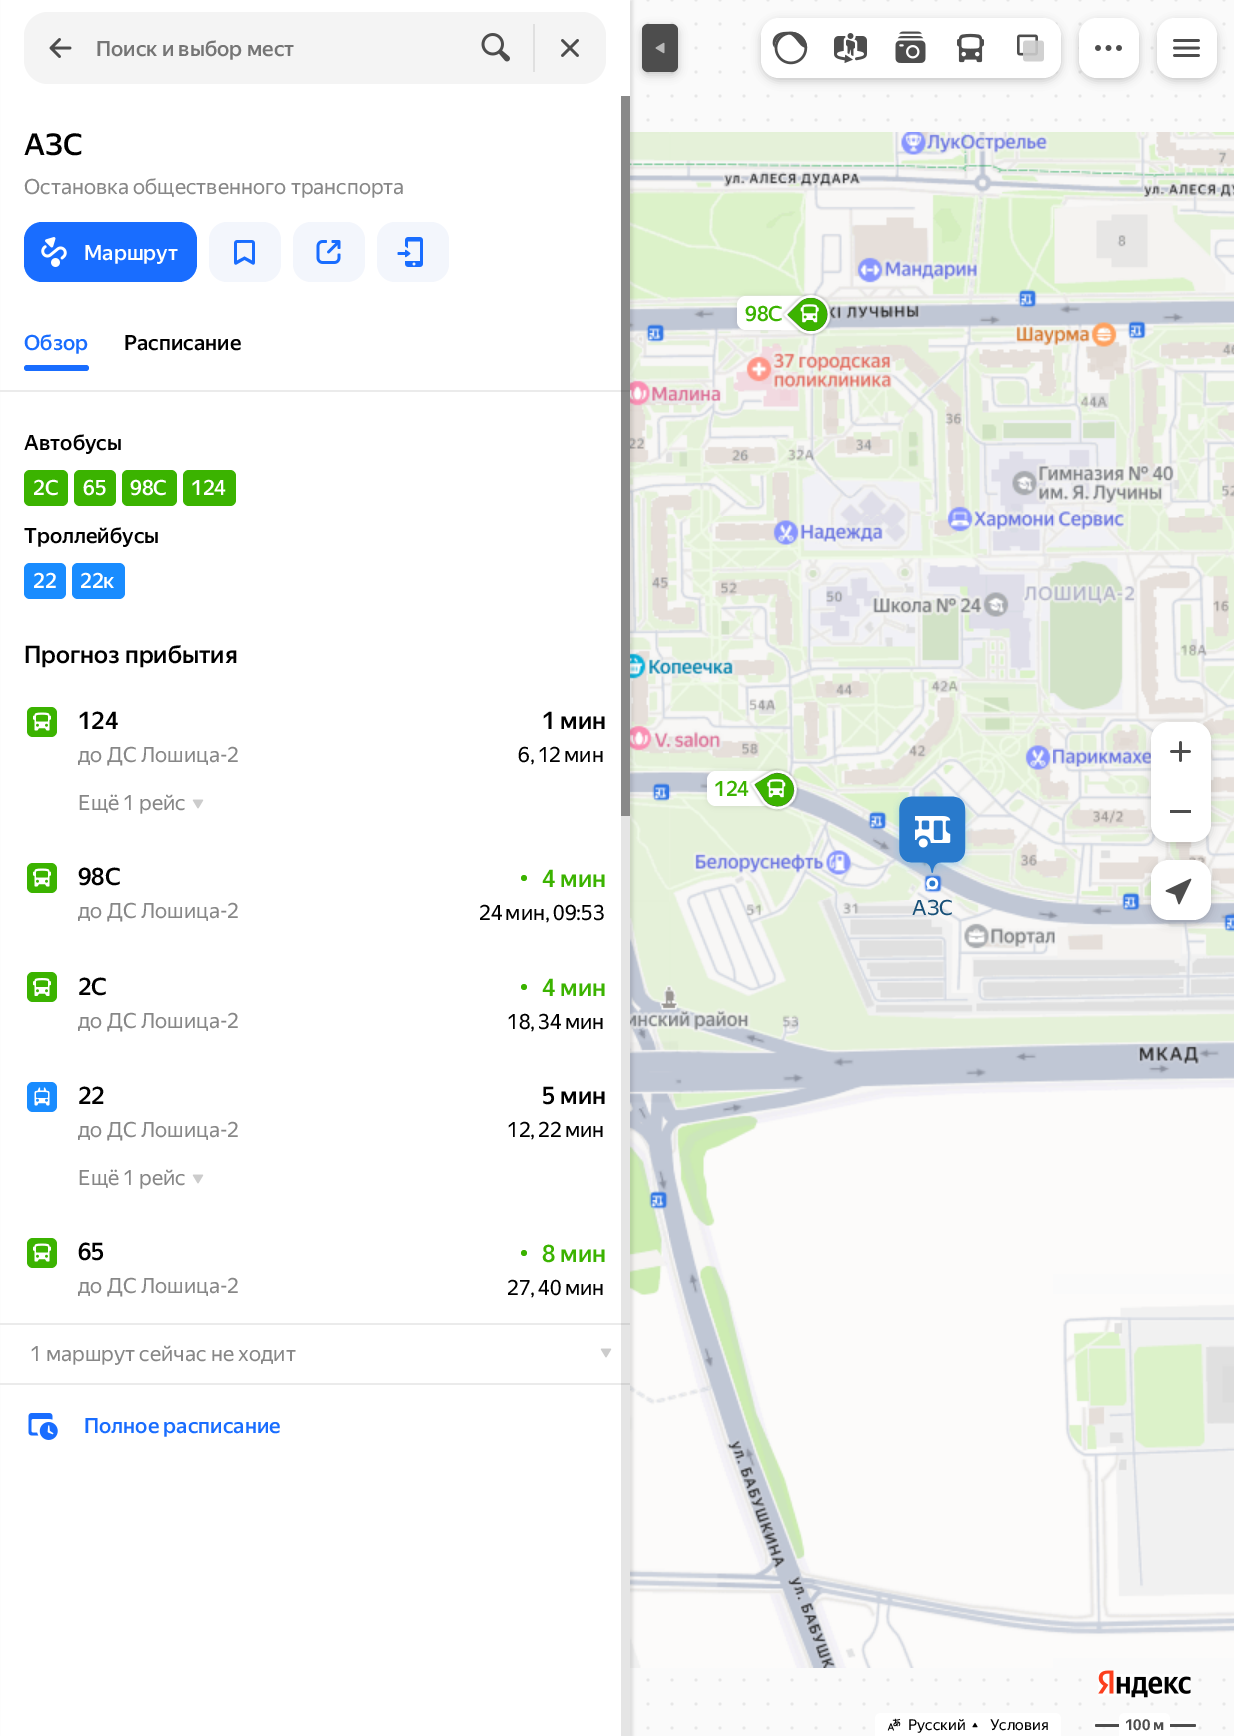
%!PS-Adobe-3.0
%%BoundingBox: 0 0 1234 1736
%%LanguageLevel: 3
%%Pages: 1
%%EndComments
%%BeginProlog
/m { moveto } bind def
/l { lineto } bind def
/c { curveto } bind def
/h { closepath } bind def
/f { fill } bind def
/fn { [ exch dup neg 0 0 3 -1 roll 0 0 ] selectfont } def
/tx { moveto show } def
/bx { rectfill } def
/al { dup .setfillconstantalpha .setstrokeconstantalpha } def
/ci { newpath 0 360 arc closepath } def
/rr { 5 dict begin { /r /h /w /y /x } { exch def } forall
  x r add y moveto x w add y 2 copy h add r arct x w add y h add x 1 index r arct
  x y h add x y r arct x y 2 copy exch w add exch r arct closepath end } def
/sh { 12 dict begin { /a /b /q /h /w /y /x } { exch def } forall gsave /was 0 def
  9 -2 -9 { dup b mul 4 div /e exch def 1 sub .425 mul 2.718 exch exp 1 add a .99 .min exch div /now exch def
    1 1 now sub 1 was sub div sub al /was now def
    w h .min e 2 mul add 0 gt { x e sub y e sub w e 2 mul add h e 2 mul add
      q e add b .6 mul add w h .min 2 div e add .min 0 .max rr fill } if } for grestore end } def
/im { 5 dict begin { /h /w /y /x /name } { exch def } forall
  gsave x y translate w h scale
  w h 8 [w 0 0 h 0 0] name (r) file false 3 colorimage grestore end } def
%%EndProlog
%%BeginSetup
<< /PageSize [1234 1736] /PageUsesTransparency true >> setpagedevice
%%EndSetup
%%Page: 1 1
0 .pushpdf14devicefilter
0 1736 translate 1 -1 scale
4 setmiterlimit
1 setgray
0 0 1234 1736 bx
(image0.raw) 630 0 604 1736 im
(image26.raw) 630 132 39 384 im
(image29.raw) 630 516 39 384 im
(image32.raw) 630 900 39 384 im
(image35.raw) 630 1284 39 384 im
0 setgray
3 0 630 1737 0 1.5 0.1 sh
642 27 36 48 6 4.5 0.2 sh
1 setgray
1 0 629 1736 bx
0.957 setgray
24 12 582 72 24 rr f
(image1.raw) 49 38 23 20 im
/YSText-Medium 21 fn
0.459 setgray
(Поиск и выбор мест) 96 56 tx
(image2.raw) 481 33 29 29 im
0.878 setgray
533 24 2 48 bx
(image3.raw) 561 39 18 18 im
0 setgray
761 21 300 60 18 4.5 0.2 sh
1 setgray
779 18 m 821 18 l 821 78 l 779 78 l 769 78 761 70 761 60 c 761 36 l 761 26 769 18 779 18 c h f
(image4.raw) 772 31 36 34 im
821 18 180 60 bx
(image5.raw) 834 33 33 30 im
1001 18 m 1043 18 l 1053 18 1061 26 1061 36 c 1061 60 l 1061 70 1053 78 1043 78 c 1001 78 l h f
(image6.raw) 1017 34 27 28 im
(image7.raw) 895 31 31 32 im
(image8.raw) 957 33 27 30 im
0 setgray
1079 21 60 60 18 4.5 0.2 sh
1 setgray
1079 18 60 60 18 rr f
(image9.raw) 1095 45 27 6 im
0 setgray
1157 21 60 60 18 4.5 0.2 sh
1 setgray
1157 18 60 60 18 rr f
(image10.raw) 1173 39 27 18 im
(image31.raw) 1053 516 181 384 im
0 setgray
1151 725 60 120 18 4.5 0.2 sh
1 setgray
1169 722 m 1193 722 l 1203 722 1211 730 1211 740 c 1211 782 l 1151 782 l 1151 740 l 1151 730 1159 722 1169 722 c h f
(image11.raw) 1170 741 21 21 im
1151 782 m 1211 782 l 1211 824 l 1211 834 1203 842 1193 842 c 1169 842 l 1159 842 1151 834 1151 824 c h f
0.302 setgray
1170 810 21 3 bx
(image34.raw) 1053 900 181 374 im
0 setgray
1151 863 60 60 18 4.5 0.2 sh
1 setgray
1151 860 60 60 18 rr f
(image12.raw) 1165 878 27 27 im
0.302 setgray
642 24 36 48 6 rr f
(image13.raw) 655 42 10 12 im
/YSText-Medium 30 fn
0 setgray
(АЗС) 24 155 tx
/YSText-Regular 21 fn
0.529 setgray
(Остановка общественного транспорта) 24 194 tx
0.098 0.427 1 setrgbcolor
24 222 173 60 18 rr f
(image14.raw) 41 237 26 30 im
/YSText-Medium 21 fn
1 setgray
(Маршрут) 84 260 tx
0.953 0.965 0.988 setrgbcolor
209 222 72 60 18 rr f
(image15.raw) 234 240 21 25 im
293 222 72 60 18 rr f
(image16.raw) 316 240 25 24 im
377 222 72 60 18 rr f
(image17.raw) 397 237 26 30 im
0.098 0.427 1 setrgbcolor
(Обзор) 24 350 tx
0 setgray
(Расписание) 124 350 tx
0.098 0.427 1 setrgbcolor
24 365 65 6 3 rr f
0.922 setgray
0 390 630 2 bx
0 setgray
(Автобусы) 24 450 tx
0.231 0.702 0 setrgbcolor
24 470 44 36 6 rr f
1 setgray
(2С) 33 495 tx
0.231 0.702 0 setrgbcolor
74 470 42 36 6 rr f
1 setgray
(65) 83 495 tx
0.231 0.702 0 setrgbcolor
122 470 55 36 6 rr f
1 setgray
(98С) 130 495 tx
0.231 0.702 0 setrgbcolor
183 470 53 36 6 rr f
1 setgray
(124) 191 495 tx
0 setgray
(Троллейбусы) 24 543 tx
0.098 0.549 1 setrgbcolor
24 563 42 36 6 rr f
1 setgray
(22) 33 588 tx
0.098 0.549 1 setrgbcolor
72 563 53 36 6 rr f
1 setgray
(22к) 80 588 tx
/YSText-Medium 24 fn
0 setgray
(Прогноз прибытия) 24 663 tx
0.231 0.702 0 setrgbcolor
27 707 30 30 6 rr f
(image18.raw) 33 712 18 19 im
0 setgray
(124) 78 729 tx
/YSText-Regular 21 fn
0.529 setgray
(до ДС Лошица-2) 78 762 tx
/YSText-Medium 24 fn
0 setgray
(1 мин) 542 729 tx
/YSText-Regular 21 fn
518 762 m -1 0 32 (6, 12 мин) widthshow
0.529 setgray
(Ещё 1 рейс) 78 810 tx
(image19.raw) 192 799 12 10 im
0.231 0.702 0 setrgbcolor
27 863 30 30 6 rr f
(image18.raw) 33 868 18 19 im
/YSText-Medium 24 fn
0 setgray
(98С) 78 885 tx
/YSText-Regular 21 fn
0.529 setgray
(до ДС Лошица-2) 78 918 tx
0.231 0.702 0 setrgbcolor
524 878 3 ci f
/YSText-Medium 24 fn
(4 мин) 542 887 tx
/YSText-Regular 21 fn
0 setgray
479 920 m -1 0 32 (24 мин, 09:53) widthshow
0.231 0.702 0 setrgbcolor
27 972 30 30 6 rr f
(image20.raw) 33 978 18 18 im
/YSText-Medium 24 fn
0 setgray
(2С) 78 995 tx
/YSText-Regular 21 fn
0.529 setgray
(до ДС Лошица-2) 78 1028 tx
0.231 0.702 0 setrgbcolor
524 987 3 ci f
/YSText-Medium 24 fn
(4 мин) 542 996 tx
/YSText-Regular 21 fn
0 setgray
507 1029 m -1 0 32 (18, 34 мин) widthshow
0.098 0.549 1 setrgbcolor
27 1082 30 30 6 rr f
(image21.raw) 34 1087 16 19 im
/YSText-Medium 24 fn
0 setgray
(22) 78 1104 tx
/YSText-Regular 21 fn
0.529 setgray
(до ДС Лошица-2) 78 1137 tx
/YSText-Medium 24 fn
0 setgray
(5 мин) 542 1104 tx
/YSText-Regular 21 fn
507 1137 m -1 0 32 (12, 22 мин) widthshow
0.529 setgray
(Ещё 1 рейс) 78 1185 tx
(image19.raw) 192 1174 12 10 im
0.231 0.702 0 setrgbcolor
27 1238 30 30 6 rr f
(image18.raw) 33 1243 18 19 im
/YSText-Medium 24 fn
0 setgray
(65) 78 1260 tx
/YSText-Regular 21 fn
0.529 setgray
(до ДС Лошица-2) 78 1293 tx
0.231 0.702 0 setrgbcolor
524 1253 3 ci f
/YSText-Medium 24 fn
(8 мин) 542 1262 tx
/YSText-Regular 21 fn
0 setgray
507 1295 m -1 0 32 (27, 40 мин) widthshow
0.922 setgray
0 1323 630 2 bx
0.529 setgray
(1 маршрут сейчас не ходит) 30 1361 tx
(image19.raw) 600 1348 12 10 im
0.922 setgray
0 1383 630 2 bx
(image22.raw) 28 1413 30 27 im
/YSText-Medium 21 fn
0.098 0.427 1 setrgbcolor
(Полное расписание) 84 1433 tx
0.1 al
0 setgray
621 96 9 1640 bx
0.4 al
621 96 9 720 bx
1 al
(image23.raw) 1098 1670 93 28 im
1 setgray
881 1713 m 1055 1713 l 1058.5 1713 1061 1715.5 1061 1719 c 1061 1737 l 875 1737 l 875 1719 l 875 1715.5 877.5 1713 881 1713 c h f
(image24.raw) 887 1718 14 13 im
/YSText-Regular 15 fn
0 setgray
(Русский) 908 1730 tx
(image25.raw) 972 1722 6 6 im
(Условия) 990 1730 tx
0.6 al
1 setgray
1092 1721 107 9 4.5 rr f
1 al
0.302 setgray
1095 1724 101 3 1.5 rr f
1 setgray
1125 1713 m 1164 1713 l 1167.5 1713 1170 1715.5 1170 1719 c 1170 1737 l 1119 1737 l 1119 1719 l 1119 1715.5 1121.5 1713 1125 1713 c h f
/YSText-Bold 15 fn
0.302 setgray
(100 м) 1125 1730 tx
(image27.raw) 669 132 384 384 im
(image28.raw) 1053 132 181 384 im
(image30.raw) 669 516 384 384 im
(image33.raw) 669 900 384 384 im
(image36.raw) 669 1284 384 384 im
(image37.raw) 1053 1294 181 364 im
0 setgray
737 296 73 34 9 3 0.1 sh
1 setgray
737 296 73 34 9 rr f
/YSText-Medium 21 fn
0.231 0.702 0 setrgbcolor
(98С) 745 321 tx
(image38.raw) 781 293 52 43 im
(image39.raw) 800 304 19 19 im
0 setgray
707 771 70 35 9 3 0.1 sh
1 setgray
707 771 70 35 9 rr f
(image40.raw) 749 768 51 44 im
0.231 0.702 0 setrgbcolor
(124) 714 796 tx
(image41.raw) 767 779 19 19 im
(image42.raw) 893 793 79 97 im
(image43.raw) 915 816 36 32 im
/YSText-Regular 21 fn
0.09 0.314 0.471 setrgbcolor
(АЗС) 912 915 tx
.poppdf14devicefilter showpage
%%EOF
